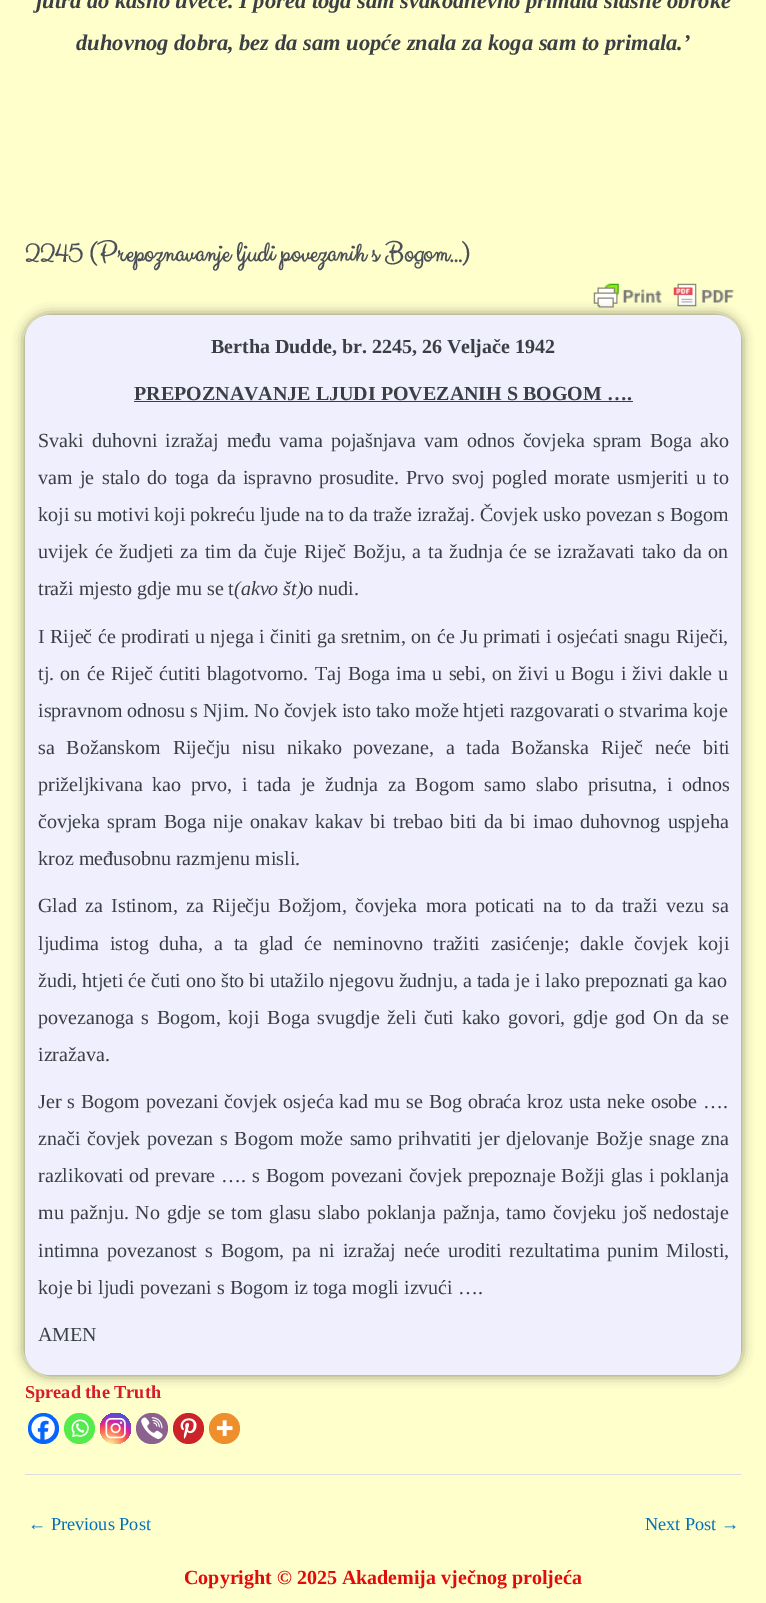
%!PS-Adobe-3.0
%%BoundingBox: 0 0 766 1603
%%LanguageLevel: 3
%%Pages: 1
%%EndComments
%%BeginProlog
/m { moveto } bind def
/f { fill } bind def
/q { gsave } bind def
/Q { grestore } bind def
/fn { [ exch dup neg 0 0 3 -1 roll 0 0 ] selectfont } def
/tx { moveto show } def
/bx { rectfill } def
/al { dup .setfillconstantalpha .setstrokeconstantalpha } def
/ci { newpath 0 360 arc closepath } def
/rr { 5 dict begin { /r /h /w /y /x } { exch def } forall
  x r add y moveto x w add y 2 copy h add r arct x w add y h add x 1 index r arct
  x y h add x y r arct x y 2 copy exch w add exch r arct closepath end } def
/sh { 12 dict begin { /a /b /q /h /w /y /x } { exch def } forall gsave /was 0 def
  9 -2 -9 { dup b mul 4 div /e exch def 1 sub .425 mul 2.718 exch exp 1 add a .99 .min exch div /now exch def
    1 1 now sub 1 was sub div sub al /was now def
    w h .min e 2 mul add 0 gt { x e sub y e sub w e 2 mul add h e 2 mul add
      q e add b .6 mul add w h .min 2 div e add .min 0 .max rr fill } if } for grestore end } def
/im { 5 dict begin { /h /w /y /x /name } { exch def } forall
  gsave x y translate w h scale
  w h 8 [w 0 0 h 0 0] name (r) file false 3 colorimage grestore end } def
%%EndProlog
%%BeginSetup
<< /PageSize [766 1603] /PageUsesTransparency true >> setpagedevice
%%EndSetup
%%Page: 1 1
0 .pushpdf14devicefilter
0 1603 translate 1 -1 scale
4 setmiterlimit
1 1 0.8 setrgbcolor
0 0 766 1603 bx
/LiberationSerif-BoldItalic 22.5 fn
0.231 0.247 0.267 setrgbcolor
(jutra do kasno uveče. I pored toga sam svakodnevno primala slasne obroke) 36 8 tx
(duhovnog dobra, bez da sam uopće znala za koga sam to primala.’) 76 50 tx
/ClickerScript-Bold 28.5 fn
0.294 0.31 0.345 setrgbcolor
(2245 \(Prepoznavanje ljudi povezanih s Bogom…\)) 25 262 tx
(image0.raw) 593 283 141 25 im
0 setgray
25 315 716 1060 25 6 0.5 sh
0.937 0.937 0.996 setrgbcolor
25 315 716 1060 25 rr f
/LiberationSerif-Bold 20 fn
0.231 0.247 0.267 setrgbcolor
(Bertha Dudde, br. 2245, 26 Veljače 1942) 211 353 tx
(PREPOZNAVANJE LJUDI POVEZANIH S BOGOM ….) 134 400 tx
134 401 499 1 bx
/LiberationSerif-Regular 20 fn
38 447 m 3.1 0 32 (Svaki duhovni izražaj među vama pojašnjava vam odnos čovjeka spram Boga ako) widthshow
38 484 m 2.5 0 32 (vam je stalo do toga da ispravno prosudite. Prvo svoj pogled morate usmjeriti u to) widthshow
(koji su motivi koji pokreću ljude na to da traže izražaj. Čovjek usko povezan s Bogom) 38 521 tx
38 558 m 1.75 0 32 (uvijek će žudjeti za tim da čuje Riječ Božju, a ta žudnja će se izražavati tako da on) widthshow
(traži mjesto gdje mu se t) 38 595 tx
/LiberationSerif-Italic 20 fn
(\(akvo št\)) 234 595 tx
/LiberationSerif-Regular 20 fn
(o nudi.) 303 595 tx
38 643 m 0.4 0 32 (I Riječ će prodirati u njega i činiti ga sretnim, on će Ju primati i osjećati snagu Riječi,) widthshow
38 680 m 1.3 0 32 (tj. on će Riječ ćutiti blagotvorno. Taj Boga ima u sebi, on živi u Bogu i živi dakle u) widthshow
(ispravnom odnosu s Njim. No čovjek isto tako može htjeti razgovarati o stvarima koje) 38 717 tx
38 754 m 6.75 0 32 (sa Božanskom Riječju nisu nikako povezane, a tada Božanska Riječ neće biti) widthshow
38 791 m 4.75 0 32 (priželjkivana kao prvo, i tada je žudnja za Bogom samo slabo prisutna, i odnos) widthshow
38 828 m 2.25 0 32 (čovjeka spram Boga nije onakav kakav bi trebao biti da bi imao duhovnog uspjeha) widthshow
(kroz međusobnu razmjenu misli.) 38 865 tx
38 912 m 3.4 0 32 (Glad za Istinom, za Riječju Božjom, čovjeka mora poticati na to da traži vezu sa) widthshow
38 950 m 5.75 0 32 (ljudima istog duha, a ta glad će neminovno tražiti zasićenje; dakle čovjek koji) widthshow
(žudi) 38 987 tx
/LiberationSerif-Italic 20 fn
(,) 72 987 tx
/LiberationSerif-Regular 20 fn
(htjeti će čuti ono što bi utažilo njegovu žudnju, a tada je i lako prepoznati ga kao) 82 987 tx
38 1024 m 2.75 0 32 (povezanoga s Bogom, koji Boga svugdje želi čuti kako govori, gdje god On da se) widthshow
(izražava.) 38 1061 tx
38 1108 m 1 0 32 (Jer s Bogom povezani čovjek osjeća kad mu se Bog obraća kroz usta neke osobe ….) widthshow
38 1145 m 1.6 0 32 (znači čovjek povezan s Bogom može samo prihvatiti jer djelovanje Božje snage zna) widthshow
38 1182 m 0.9 0 32 (razlikovati od prevare …. s Bogom povezani čovjek prepoznaje Božji glas i poklanja) widthshow
38 1219 m 1.75 0 32 (mu pažnju. No gdje se tom glasu slabo poklanja pažnja, tamo čovjeku još nedostaje) widthshow
38 1257 m 2.9 0 32 (intimna povezanost s Bogom, pa ni izražaj neće uroditi rezultatima punim Milosti,) widthshow
(koje bi ljudi povezani s Bogom iz toga mogli izvući ….) 38 1294 tx
(AMEN) 38 1341 tx
/LiberationSerif-Bold 18.25 fn
0.839 0.106 0.169 setrgbcolor
(Spread the Truth) 25 1398 tx
0.027 0.396 0.996 setrgbcolor
43.5 1428.5 15.5 ci f
(image1.raw) 31 1416 24 24 im
0.333 0.922 0.298 setrgbcolor
79.5 1428.5 15.5 ci f
(image2.raw) 71 1419 18 18 im
q 115.5 1428.5 15.5 ci clip newpath 109 1446 translate 40 40 scale
<< /ShadingType 3 /ColorSpace /DeviceRGB /Coords [0 0 0 0 0 1] /Extend [true true] /Function << /FunctionType 3 /Domain [0 1] /Functions [<< /FunctionType 2 /Domain [0 1] /C0 [0.992 0.957 0.592] /C1 [0.992 0.957 0.592] /N 1 >> << /FunctionType 2 /Domain [0 1] /C0 [0.992 0.957 0.592] /C1 [0.992 0.349 0.286] /N 1 >> << /FunctionType 2 /Domain [0 1] /C0 [0.992 0.349 0.286] /C1 [0.839 0.141 0.624] /N 1 >> << /FunctionType 2 /Domain [0 1] /C0 [0.839 0.141 0.624] /C1 [0.157 0.353 0.922] /N 1 >> << /FunctionType 2 /Domain [0 1] /C0 [0.157 0.353 0.922] /C1 [0.157 0.353 0.922] /N 1 >>] /Bounds [0.05 0.45 0.6 0.9] /Encode [0 1 0 1 0 1 0 1 0 1] >> >> shfill Q
(image3.raw) 105 1418 21 21 im
0.545 0.384 0.561 setrgbcolor
136 1413 32 31 15.5 rr f
(image4.raw) 141 1417 22 22 im
0.8 0.137 0.161 setrgbcolor
188.5 1428.5 15.5 ci f
(image5.raw) 180 1418 17 21 im
0.933 0.557 0.176 setrgbcolor
224.5 1428.5 15.5 ci f
(image6.raw) 216 1420 17 16 im
0.867 setgray
25 1474 716 1 bx
/LiberationSerif-Regular 18.25 fn
0.004 0.439 0.725 setrgbcolor
(← Previous Post) 28 1530 tx
(Next Post →) 645 1530 tx
/LiberationSerif-Bold 20 fn
0.882 0.043 0.043 setrgbcolor
(Copyright © 2025 Akademija vječnog proljeća) 184 1584 tx
.poppdf14devicefilter showpage
%%EOF
